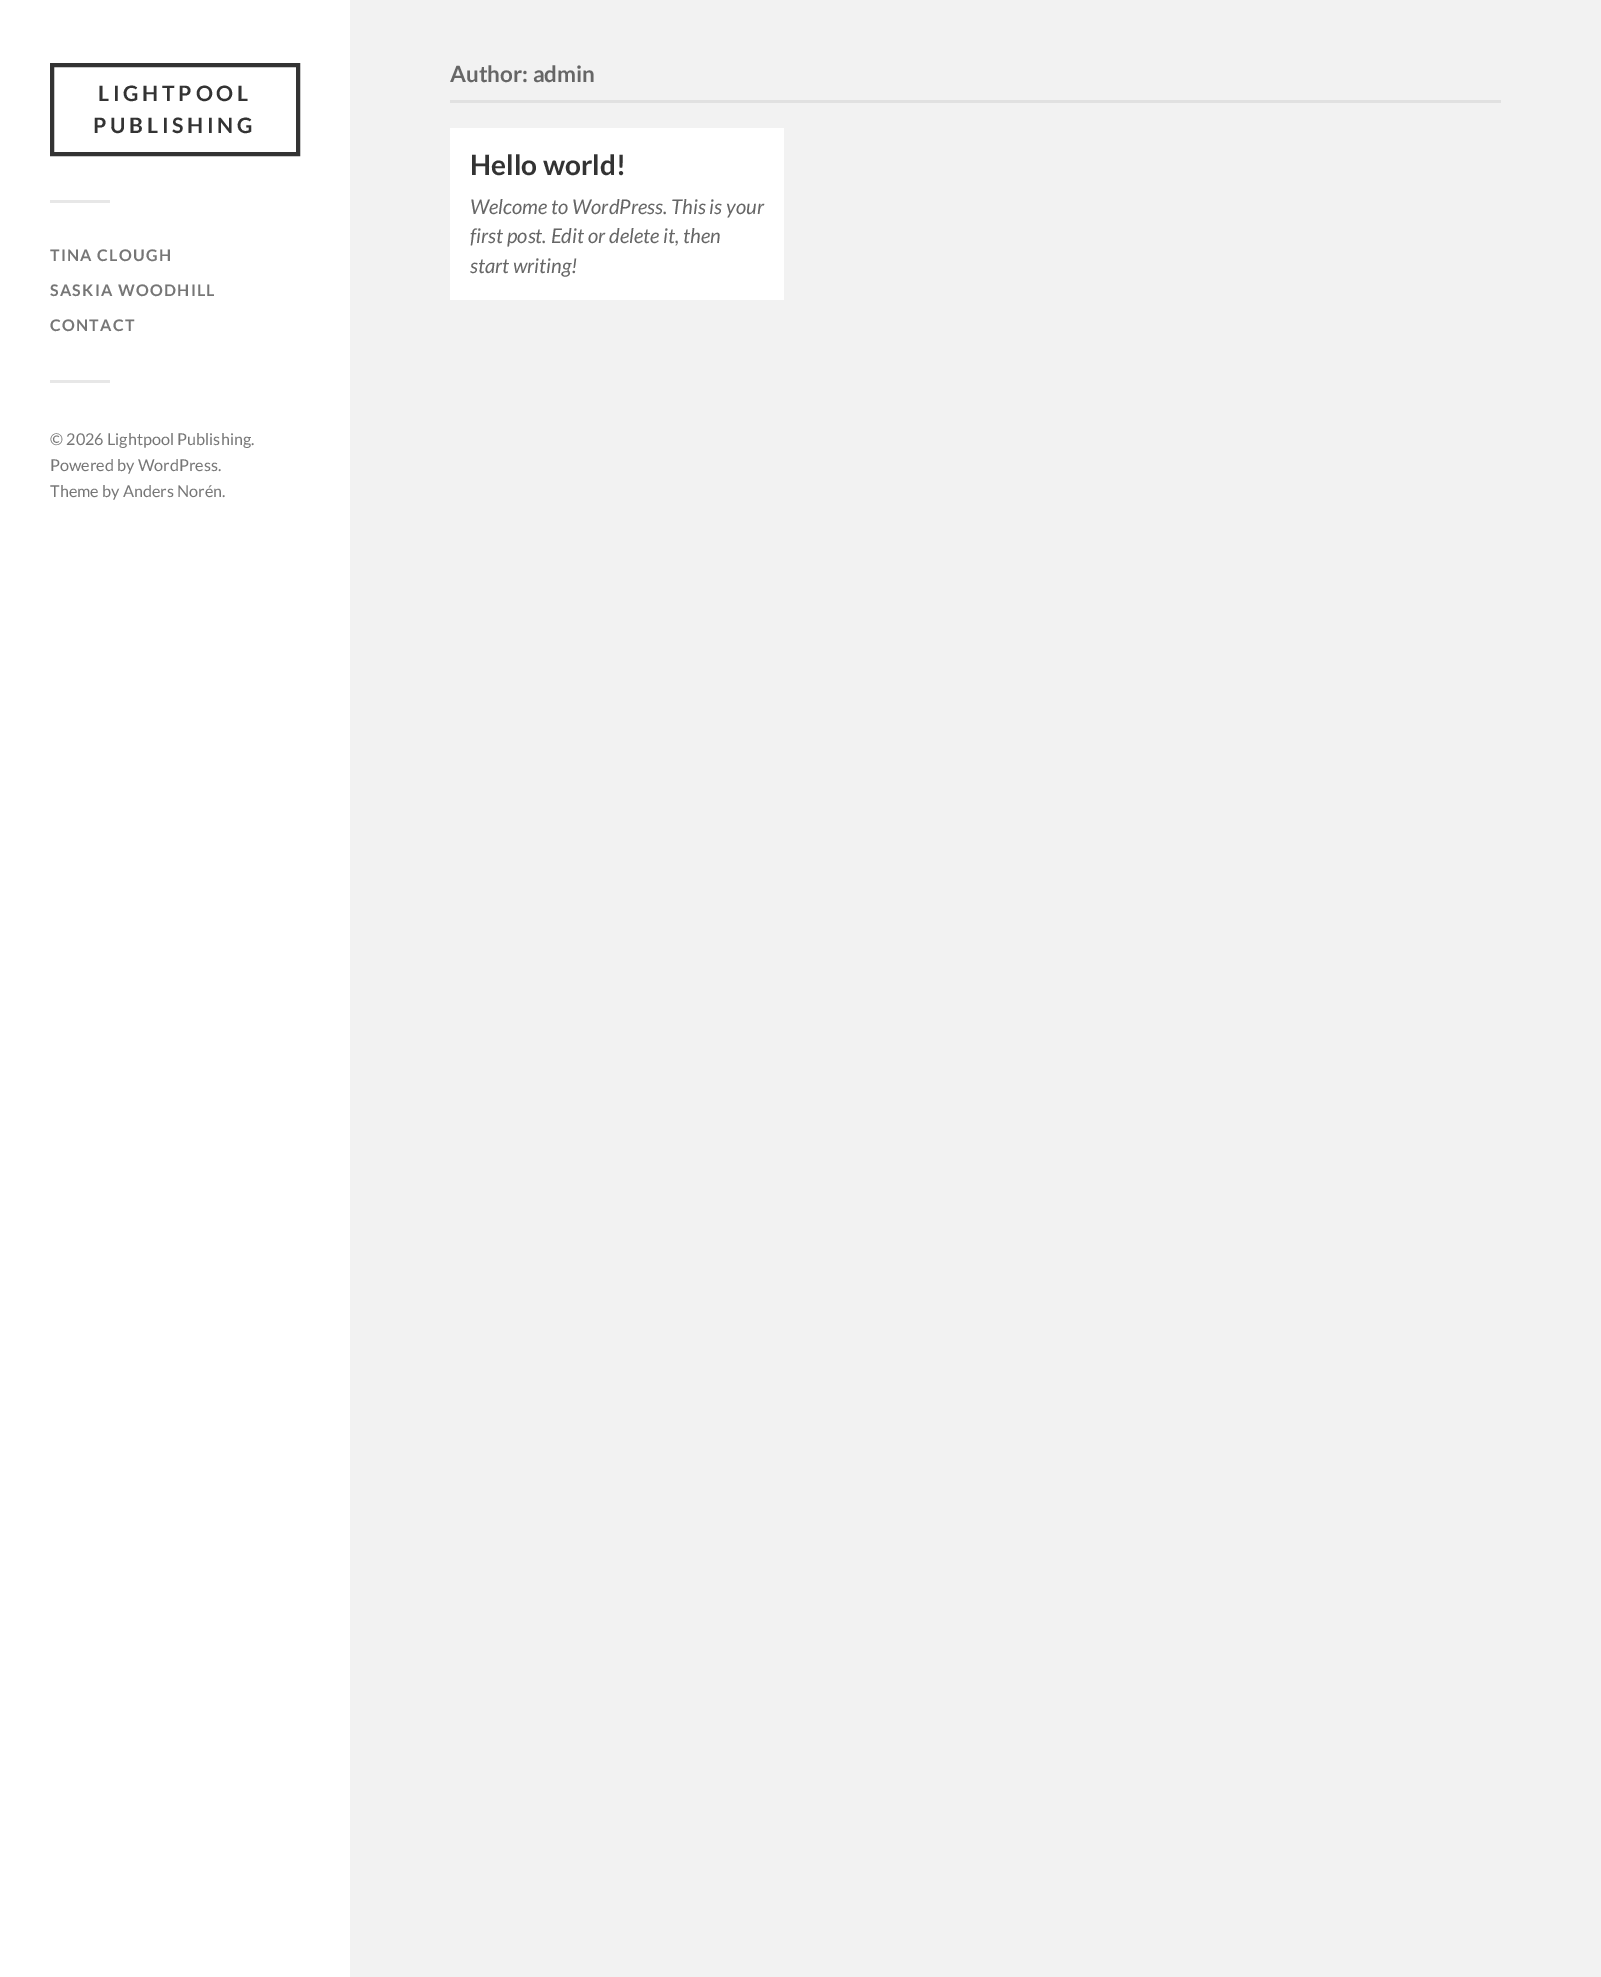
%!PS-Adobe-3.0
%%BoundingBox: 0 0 1601 1977
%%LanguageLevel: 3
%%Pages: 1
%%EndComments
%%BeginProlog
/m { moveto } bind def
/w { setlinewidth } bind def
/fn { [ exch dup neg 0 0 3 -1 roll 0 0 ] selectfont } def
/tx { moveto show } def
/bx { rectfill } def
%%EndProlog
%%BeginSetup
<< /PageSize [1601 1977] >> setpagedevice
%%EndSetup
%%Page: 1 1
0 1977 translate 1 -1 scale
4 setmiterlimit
0.949 setgray
0 0 1601 1977 bx
1 setgray
0 0 350 1977 bx
0.2 setgray
4 w
52 65 246 89 rectstroke
/Lato-Bold 21.25 fn
98 101 m 3.75 0 (LIGHTPOOL) ashow
93 133 m 3.75 0 (PUBLISHING) ashow
0.906 setgray
50 200 60 3 bx
/Lato-Bold 16 fn
0.463 setgray
50 261 m 1.25 0 (TINA CLOUGH) ashow
50 296 m 1.25 0 (SASKIA WOODHILL) ashow
50 331 m 1.25 0 (CONTACT) ashow
0.906 setgray
50 380 60 3 bx
/Lato-Regular 16.25 fn
0.463 setgray
(© 2026 Lightpool Publishing.) 50 445 tx
(Powered by WordPress.) 50 471 tx
(Theme by Anders Norén.) 50 497 tx
0.882 setgray
450 100 1051 3 bx
/Lato-Bold 22.5 fn
0.4 setgray
(Author: admin) 450 82 tx
1 setgray
450 128 334 172 bx
/Lato-Bold 28 fn
0.2 setgray
(Hello world!) 470 175 tx
/Lato-Italic 20.25 fn
0.4 setgray
(Welcome to WordPress. This is your) 470 214 tx
(first post. Edit or delete it, then) 470 243 tx
(start writing!) 470 273 tx
showpage
%%EOF
